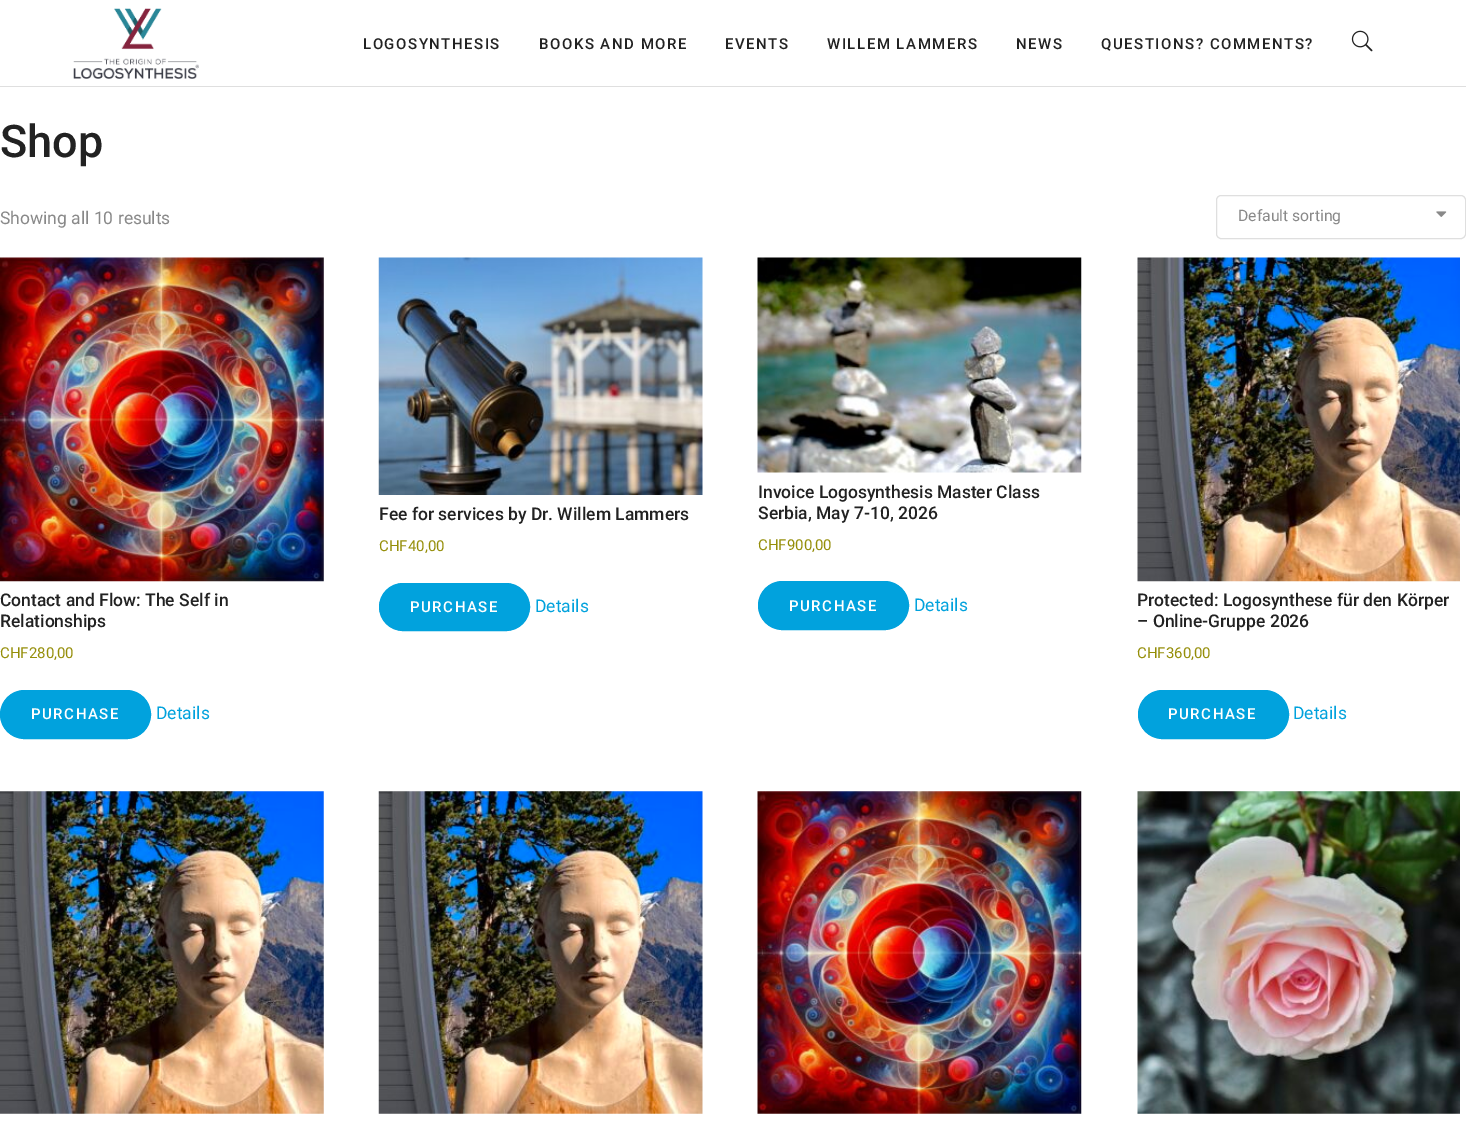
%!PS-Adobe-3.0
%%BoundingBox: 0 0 1466 1127
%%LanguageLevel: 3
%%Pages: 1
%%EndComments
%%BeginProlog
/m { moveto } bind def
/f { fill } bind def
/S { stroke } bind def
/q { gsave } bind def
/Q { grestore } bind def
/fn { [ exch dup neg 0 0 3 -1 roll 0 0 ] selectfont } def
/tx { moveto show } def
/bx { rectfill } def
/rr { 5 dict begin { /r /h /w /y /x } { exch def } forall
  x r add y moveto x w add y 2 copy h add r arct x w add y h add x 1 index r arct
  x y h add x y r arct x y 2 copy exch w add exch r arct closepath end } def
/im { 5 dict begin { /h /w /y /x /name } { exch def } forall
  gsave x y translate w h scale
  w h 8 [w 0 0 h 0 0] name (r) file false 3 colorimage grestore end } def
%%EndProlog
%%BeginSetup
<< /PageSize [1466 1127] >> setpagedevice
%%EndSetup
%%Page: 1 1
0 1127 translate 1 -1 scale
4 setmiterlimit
1 setgray
0 0 1466 1127 bx
0.875 setgray
0 86 1466 1 bx
(image0.raw) 73 8 126 71 im
/Roboto-Medium 15 fn
0.133 setgray
363 49 m 1.5 0 (LOGOSYNTHESIS) ashow
539 49 m 1.5 0 (BOOKS AND MORE) ashow
725 49 m 1.5 0 (EVENTS) ashow
827 49 m 1.5 0 (WILLEM LAMMERS) ashow
1016 49 m 1.5 0 (NEWS) ashow
1101 49 m 1.5 0 (QUESTIONS? COMMENTS?) ashow
(image1.raw) 1351 30 22 22 im
/Roboto-Medium 45 fn
(Shop) 0 157 tx
/Roboto-Regular 17.5 fn
0.537 setgray
(Showing all 10 results) 0 224 tx
0.875 setgray
1216.5 195.5 249 43 4.5 rr S
/Roboto-Regular 15.75 fn
0.537 setgray
(Default sorting) 1238 221 tx
(image2.raw) 1436 211 11 6 im
(image3.raw) 378 257 325 238 im
/Roboto-Medium 17.5 fn
0.133 setgray
(Fee for services by Dr. Willem Lammers) 379 520 tx
/Roboto-Regular 15 fn
0.584 0.557 0.035 setrgbcolor
(CHF40,00) 379 551 tx
0.004 0.635 0.867 setrgbcolor
379.5 583.5 150 47 23.5 rr q f Q
S
/Roboto-Medium 15 fn
1 setgray
410 612 m 1.5 0 (PURCHASE) ashow
/Roboto-Regular 17.5 fn
0.004 0.635 0.867 setrgbcolor
(Details) 535 612 tx
(image4.raw) 757 257 325 216 im
/Roboto-Medium 17.5 fn
0.133 setgray
(Invoice Logosynthesis Master Class) 758 498 tx
(Serbia, May 7-10, 2026) 758 519 tx
/Roboto-Regular 15 fn
0.584 0.557 0.035 setrgbcolor
(CHF900,00) 758 550 tx
0.004 0.635 0.867 setrgbcolor
758.5 581.5 150 48 24 rr q f Q
S
/Roboto-Medium 15 fn
1 setgray
789 611 m 1.5 0 (PURCHASE) ashow
/Roboto-Regular 17.5 fn
0.004 0.635 0.867 setrgbcolor
(Details) 914 611 tx
(image5.raw) 0 257 324 325 im
/Roboto-Medium 17.5 fn
0.133 setgray
(Contact and Flow: The Self in) 0 606 tx
(Relationships) 0 627 tx
/Roboto-Regular 15 fn
0.584 0.557 0.035 setrgbcolor
(CHF280,00) 0 658 tx
0.004 0.635 0.867 setrgbcolor
0.5 690.5 150 48 24 rr q f Q
S
/Roboto-Medium 15 fn
1 setgray
31 719 m 1.5 0 (PURCHASE) ashow
/Roboto-Regular 17.5 fn
0.004 0.635 0.867 setrgbcolor
(Details) 156 719 tx
(image6.raw) 1137 257 323 325 im
/Roboto-Medium 17.5 fn
0.133 setgray
(Protected: Logosynthese für den Körper) 1137 606 tx
(– Online-Gruppe 2026) 1137 627 tx
/Roboto-Regular 15 fn
0.584 0.557 0.035 setrgbcolor
(CHF360,00) 1137 658 tx
0.004 0.635 0.867 setrgbcolor
1138.5 690.5 150 48 24 rr q f Q
S
/Roboto-Medium 15 fn
1 setgray
1168 719 m 1.5 0 (PURCHASE) ashow
/Roboto-Regular 17.5 fn
0.004 0.635 0.867 setrgbcolor
(Details) 1293 719 tx
(image7.raw) 0 791 324 323 im
(image8.raw) 378 791 325 323 im
(image9.raw) 757 791 325 323 im
(image10.raw) 1137 791 323 323 im
showpage
%%EOF
